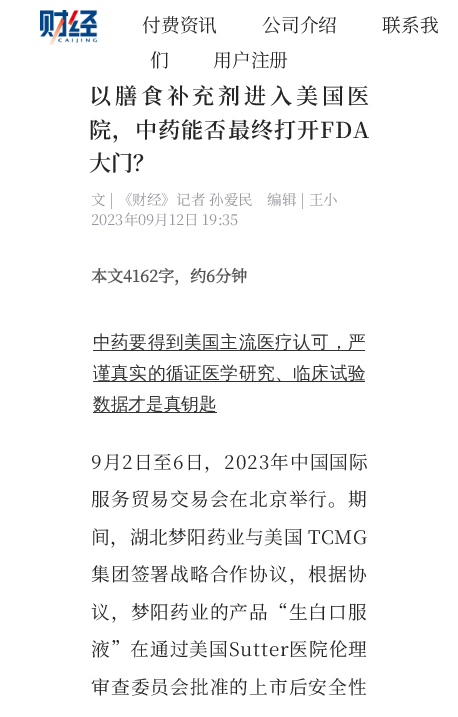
%!PS-Adobe-3.0
%%BoundingBox: 0 0 458 717
%%LanguageLevel: 3
%%Pages: 1
%%EndComments
%%BeginProlog
/m { moveto } bind def
/fn { [ exch dup neg 0 0 3 -1 roll 0 0 ] selectfont } def
/tx { moveto show } def
/bx { rectfill } def
/im { 5 dict begin { /h /w /y /x /name } { exch def } forall
  gsave x y translate w h scale
  w h 8 [w 0 0 h 0 0] name (r) file false 3 colorimage grestore end } def
%%EndProlog
%%BeginSetup
<< /PageSize [458 717] >> setpagedevice
%%EndSetup
%%Page: 1 1
0 717 translate 1 -1 scale
4 setmiterlimit
1 setgray
0 0 458 717 bx
(image0.raw) 40 10 58 36 im
/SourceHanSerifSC-Regular 18.75 fn
0.145 setgray
(付费资讯) 142 32 tx
(公司介绍) 262 32 tx
(联系我) 382 32 tx
(们) 150 67 tx
(用户注册) 213 67 tx
/SourceHanSerifSC-SemiBold 22.1 fn
89 104 m 3.75 0 (以膳食补充剂进入美国医) ashow
89 138 m 1 0 (院，中药能否最终打开FDA) ashow
(大门？) 89 171 tx
/SourceHanSerifSC-Regular 14.6 fn
0.588 0.588 0.62 setrgbcolor
(文 | 《财经》记者 孙爱民　编辑 | 王小) 91 205 tx
(2023年09月12日 19:35) 91 225 tx
/SourceHanSerifSC-Bold 16.1 fn
0.333 setgray
(本文4162字，约6分钟) 91 282 tx
0.2 setgray
93 350 272 1 bx
/WenQuanYiZenHei-Medium 17.7 fn
93 348 m 0.5 0 (中药要得到美国主流医疗认可，严) ashow
93 381 272 1 bx
93 379 m 0.5 0 (谨真实的循证医学研究、临床试验) ashow
93 412 124 1 bx
(数据才是真钥匙) 93 410 tx
/SourceHanSerifSC-Regular 18.75 fn
0.145 setgray
91 469 m 1 0 (9月2日至6日，2023年中国国际) ashow
91 506 m 1 0 (服务贸易交易会在北京举行。期) ashow
91 544 m 0.5 0 (间，湖北梦阳药业与美国 TCMG) ashow
91 581 m 1 0 (集团签署战略合作协议，根据协) ashow
91 619 m 1 0 (议，梦阳药业的产品“生白口服) ashow
91 656 m 0.9 0 (液”在通过美国Sutter医院伦理) ashow
91 694 m 1 0 (审查委员会批准的上市后安全性) ashow
showpage
%%EOF
